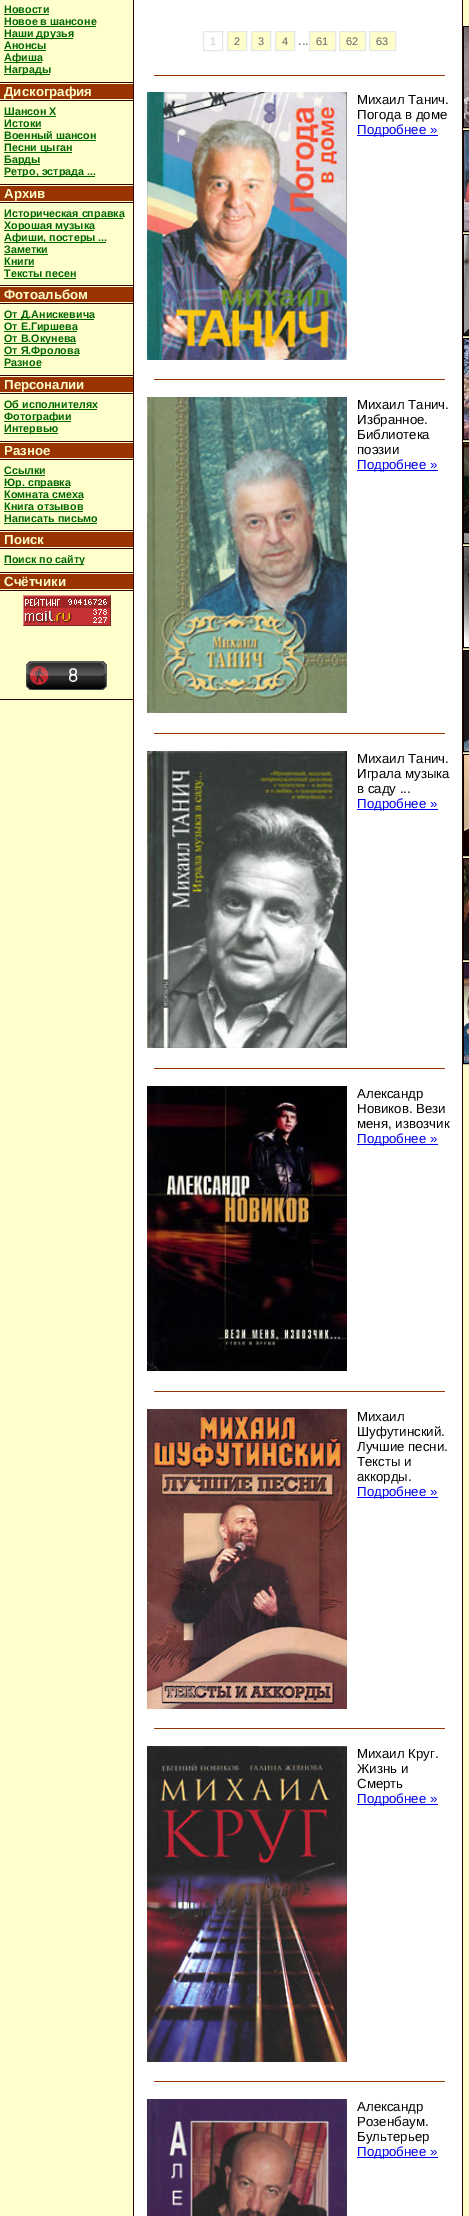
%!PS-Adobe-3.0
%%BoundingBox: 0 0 469 2216
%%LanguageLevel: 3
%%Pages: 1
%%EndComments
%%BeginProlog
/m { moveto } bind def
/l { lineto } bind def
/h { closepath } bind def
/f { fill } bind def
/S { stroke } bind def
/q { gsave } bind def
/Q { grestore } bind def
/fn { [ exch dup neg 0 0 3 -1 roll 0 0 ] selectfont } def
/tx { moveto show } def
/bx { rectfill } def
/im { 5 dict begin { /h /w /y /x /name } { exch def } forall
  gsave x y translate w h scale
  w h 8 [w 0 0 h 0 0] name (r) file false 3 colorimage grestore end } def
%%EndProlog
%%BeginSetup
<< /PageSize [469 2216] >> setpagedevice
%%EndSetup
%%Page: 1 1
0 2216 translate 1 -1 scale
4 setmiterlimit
1 setgray
0 0 469 2216 bx
1 1 0.8 setrgbcolor
0 0 133 2216 bx
0.2 0 0 setrgbcolor
0 82 133 1 bx
/LiberationSans-Bold 10.75 fn
0 0.4 0 setrgbcolor
(Новости) 4 13 tx
4 14 45 1 bx
(Новое в шансоне) 4 25 tx
4 26 92 1 bx
4 38 69 1 bx
(Наши друзья) 4 37 tx
(Анонсы) 4 49 tx
4 50 42 1 bx
4 62 38 1 bx
(Афиша) 4 61 tx
4 74 46 1 bx
(Награды) 4 73 tx
0.6 0.2 0 setrgbcolor
0 84 133 15 bx
/LiberationSans-Bold 13.25 fn
1 1 0.8 setrgbcolor
(Дискография) 4 96 tx
0.2 0 0 setrgbcolor
0 100 133 1 bx
0 184 133 1 bx
/LiberationSans-Bold 10.75 fn
0 0.4 0 setrgbcolor
(Шансон X) 4 115 tx
4 116 52 1 bx
(Истоки) 4 127 tx
4 128 37 1 bx
(Военный шансон) 4 139 tx
4 140 92 1 bx
4 152 68 1 bx
(Песни цыган) 4 151 tx
4 164 36 1 bx
(Барды) 4 163 tx
4 176 91 1 bx
(Ретро, эстрада ...) 4 175 tx
0.6 0.2 0 setrgbcolor
0 186 133 15 bx
/LiberationSans-Bold 13.25 fn
1 1 0.8 setrgbcolor
(Архив) 4 198 tx
0.2 0 0 setrgbcolor
0 202 133 1 bx
0 285 133 1 bx
0 0.4 0 setrgbcolor
4 218 119 1 bx
/LiberationSans-Bold 10.75 fn
(Историческая справка) 4 217 tx
4 230 90 1 bx
(Хорошая музыка) 4 229 tx
4 242 102 1 bx
(Афиши, постеры ...) 4 241 tx
(Заметки) 4 253 tx
4 254 44 1 bx
(Книги) 4 265 tx
4 266 30 1 bx
(Тексты песен) 4 277 tx
4 278 72 1 bx
0.6 0.2 0 setrgbcolor
0 287 133 15 bx
/LiberationSans-Bold 13.25 fn
1 1 0.8 setrgbcolor
(Фотоальбом) 4 299 tx
0.2 0 0 setrgbcolor
0 303 133 1 bx
0 375 133 1 bx
0 0.4 0 setrgbcolor
4 319 90 1 bx
/LiberationSans-Bold 10.75 fn
(От Д.Анискевича) 4 318 tx
4 331 73 1 bx
(От Е.Гиршева) 4 330 tx
4 343 72 1 bx
(От В.Окунева) 4 342 tx
4 355 75 1 bx
(От Я.Фролова) 4 354 tx
(Разное) 4 366 tx
4 367 37 1 bx
0.6 0.2 0 setrgbcolor
0 377 133 15 bx
/LiberationSans-Bold 13.25 fn
1 1 0.8 setrgbcolor
(Персоналии) 4 389 tx
0.2 0 0 setrgbcolor
0 393 133 1 bx
0 441 133 1 bx
/LiberationSans-Bold 10.75 fn
0 0.4 0 setrgbcolor
(Об исполнителях) 4 408 tx
4 409 93 1 bx
4 421 67 1 bx
(Фотографии) 4 420 tx
4 433 54 1 bx
(Интервью) 4 432 tx
0.6 0.2 0 setrgbcolor
0 443 133 15 bx
/LiberationSans-Bold 13.25 fn
1 1 0.8 setrgbcolor
(Разное) 4 455 tx
0.2 0 0 setrgbcolor
0 459 133 1 bx
0 530 133 1 bx
/LiberationSans-Bold 10.75 fn
0 0.4 0 setrgbcolor
(Ссылки) 4 474 tx
4 475 41 1 bx
4 487 66 1 bx
(Юр. справка) 4 486 tx
(Комната смеха) 4 498 tx
4 499 79 1 bx
(Книга отзывов) 4 510 tx
4 511 79 1 bx
(Написать письмо) 4 522 tx
4 523 93 1 bx
0.6 0.2 0 setrgbcolor
0 532 133 15 bx
/LiberationSans-Bold 13.25 fn
1 1 0.8 setrgbcolor
(Поиск) 4 544 tx
0.2 0 0 setrgbcolor
0 548 133 1 bx
0 572 133 1 bx
0 0.4 0 setrgbcolor
4 564 80 1 bx
/LiberationSans-Bold 10.75 fn
(Поиск по сайту) 4 563 tx
0.6 0.2 0 setrgbcolor
0 574 133 15 bx
/LiberationSans-Bold 13.25 fn
1 1 0.8 setrgbcolor
(Счётчики) 4 586 tx
0.2 0 0 setrgbcolor
0 590 133 1 bx
0 699 133 1 bx
(image0.raw) 23 595 88 31 im
(image1.raw) 26 661 81 29 im
462 0 1 2216 bx
133 0 1 2216 bx
0.902 setgray
203.5 31.5 19 19 rectstroke
/LiberationSans-Regular 11 fn
0.8 setgray
(1) 210 45 tx
1 1 0.8 setrgbcolor
227.5 31.5 m 246.5 31.5 l 246.5 50.5 l 227.5 50.5 l h q f Q
0.902 setgray
S
0.388 setgray
(2) 234 45 tx
1 1 0.8 setrgbcolor
251.5 31.5 m 270.5 31.5 l 270.5 50.5 l 251.5 50.5 l h q f Q
0.902 setgray
S
0.388 setgray
(3) 258 45 tx
1 1 0.8 setrgbcolor
275.5 31.5 m 294.5 31.5 l 294.5 50.5 l 275.5 50.5 l h q f Q
0.902 setgray
S
0.388 setgray
(4) 282 45 tx
/LiberationSans-Regular 13.25 fn
(...) 298 45 tx
1 1 0.8 setrgbcolor
309.5 31.5 m 335.5 31.5 l 335.5 50.5 l 309.5 50.5 l h q f Q
0.902 setgray
S
/LiberationSans-Regular 11 fn
0.388 setgray
(61) 316 45 tx
1 1 0.8 setrgbcolor
339.5 31.5 m 365.5 31.5 l 365.5 50.5 l 339.5 50.5 l h q f Q
0.902 setgray
S
0.388 setgray
(62) 346 45 tx
1 1 0.8 setrgbcolor
369.5 31.5 m 395.5 31.5 l 395.5 50.5 l 369.5 50.5 l h q f Q
0.902 setgray
S
0.388 setgray
(63) 376 45 tx
0.6 0.2 0 setrgbcolor
154 75 291 1 bx
(image2.raw) 147 92 200 268 im
/LiberationSans-Regular 13.25 fn
0 setgray
(Михаил Танич.) 357 104 tx
(Погода в доме) 357 119 tx
0 0 0.933 setrgbcolor
357 135 81 1 bx
(Подробнее ») 357 134 tx
0.6 0.2 0 setrgbcolor
154 379 291 1 bx
(image3.raw) 147 397 200 316 im
0 setgray
(Михаил Танич.) 357 409 tx
(Избранное.) 357 424 tx
(Библиотека) 357 439 tx
(поэзии) 357 454 tx
0 0 0.933 setrgbcolor
357 470 81 1 bx
(Подробнее ») 357 469 tx
0.6 0.2 0 setrgbcolor
154 733 291 1 bx
(image4.raw) 147 751 200 297 im
0 setgray
(Михаил Танич.) 357 763 tx
(Играла музыка) 357 778 tx
(в саду ...) 357 793 tx
0 0 0.933 setrgbcolor
357 809 81 1 bx
(Подробнее ») 357 808 tx
0.6 0.2 0 setrgbcolor
154 1068 291 1 bx
(image5.raw) 147 1086 200 285 im
0 setgray
(Александр) 357 1098 tx
(Новиков. Вези) 357 1113 tx
(меня, извозчик) 357 1128 tx
0 0 0.933 setrgbcolor
357 1144 81 1 bx
(Подробнее ») 357 1143 tx
0.6 0.2 0 setrgbcolor
154 1391 291 1 bx
(image6.raw) 147 1409 200 300 im
0 setgray
(Михаил) 357 1421 tx
(Шуфутинский.) 357 1436 tx
(Лучшие песни.) 357 1451 tx
(Тексты и) 357 1466 tx
(аккорды.) 357 1481 tx
0 0 0.933 setrgbcolor
357 1497 81 1 bx
(Подробнее ») 357 1496 tx
0.6 0.2 0 setrgbcolor
154 1728 291 1 bx
(image7.raw) 147 1746 200 316 im
0 setgray
(Михаил Круг.) 357 1758 tx
(Жизнь и) 357 1773 tx
(Смерть) 357 1788 tx
0 0 0.933 setrgbcolor
357 1804 81 1 bx
(Подробнее ») 357 1803 tx
0.6 0.2 0 setrgbcolor
154 2081 291 1 bx
(image8.raw) 147 2099 200 117 im
0 setgray
(Александр) 357 2111 tx
(Розенбаум.) 357 2126 tx
(Бультерьер) 357 2141 tx
0 0 0.933 setrgbcolor
357 2157 81 1 bx
(Подробнее ») 357 2156 tx
1 1 0.8 setrgbcolor
463 0 6 2216 bx
0 setgray
463.5 26.5 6 101 rectstroke
(image9.raw) 464 27 5 100 im
463.5 130.5 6 101 rectstroke
(image10.raw) 464 131 5 100 im
463.5 234.5 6 101 rectstroke
(image11.raw) 464 235 5 100 im
463.5 338.5 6 101 rectstroke
(image12.raw) 464 339 5 100 im
463.5 442.5 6 101 rectstroke
(image13.raw) 464 443 5 100 im
463.5 546.5 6 101 rectstroke
(image14.raw) 464 547 5 100 im
463.5 650.5 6 101 rectstroke
(image15.raw) 464 651 5 100 im
463.5 754.5 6 101 rectstroke
(image16.raw) 464 755 5 100 im
463.5 858.5 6 101 rectstroke
(image17.raw) 464 859 5 100 im
463.5 962.5 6 101 rectstroke
(image18.raw) 464 963 5 100 im
showpage
%%EOF
